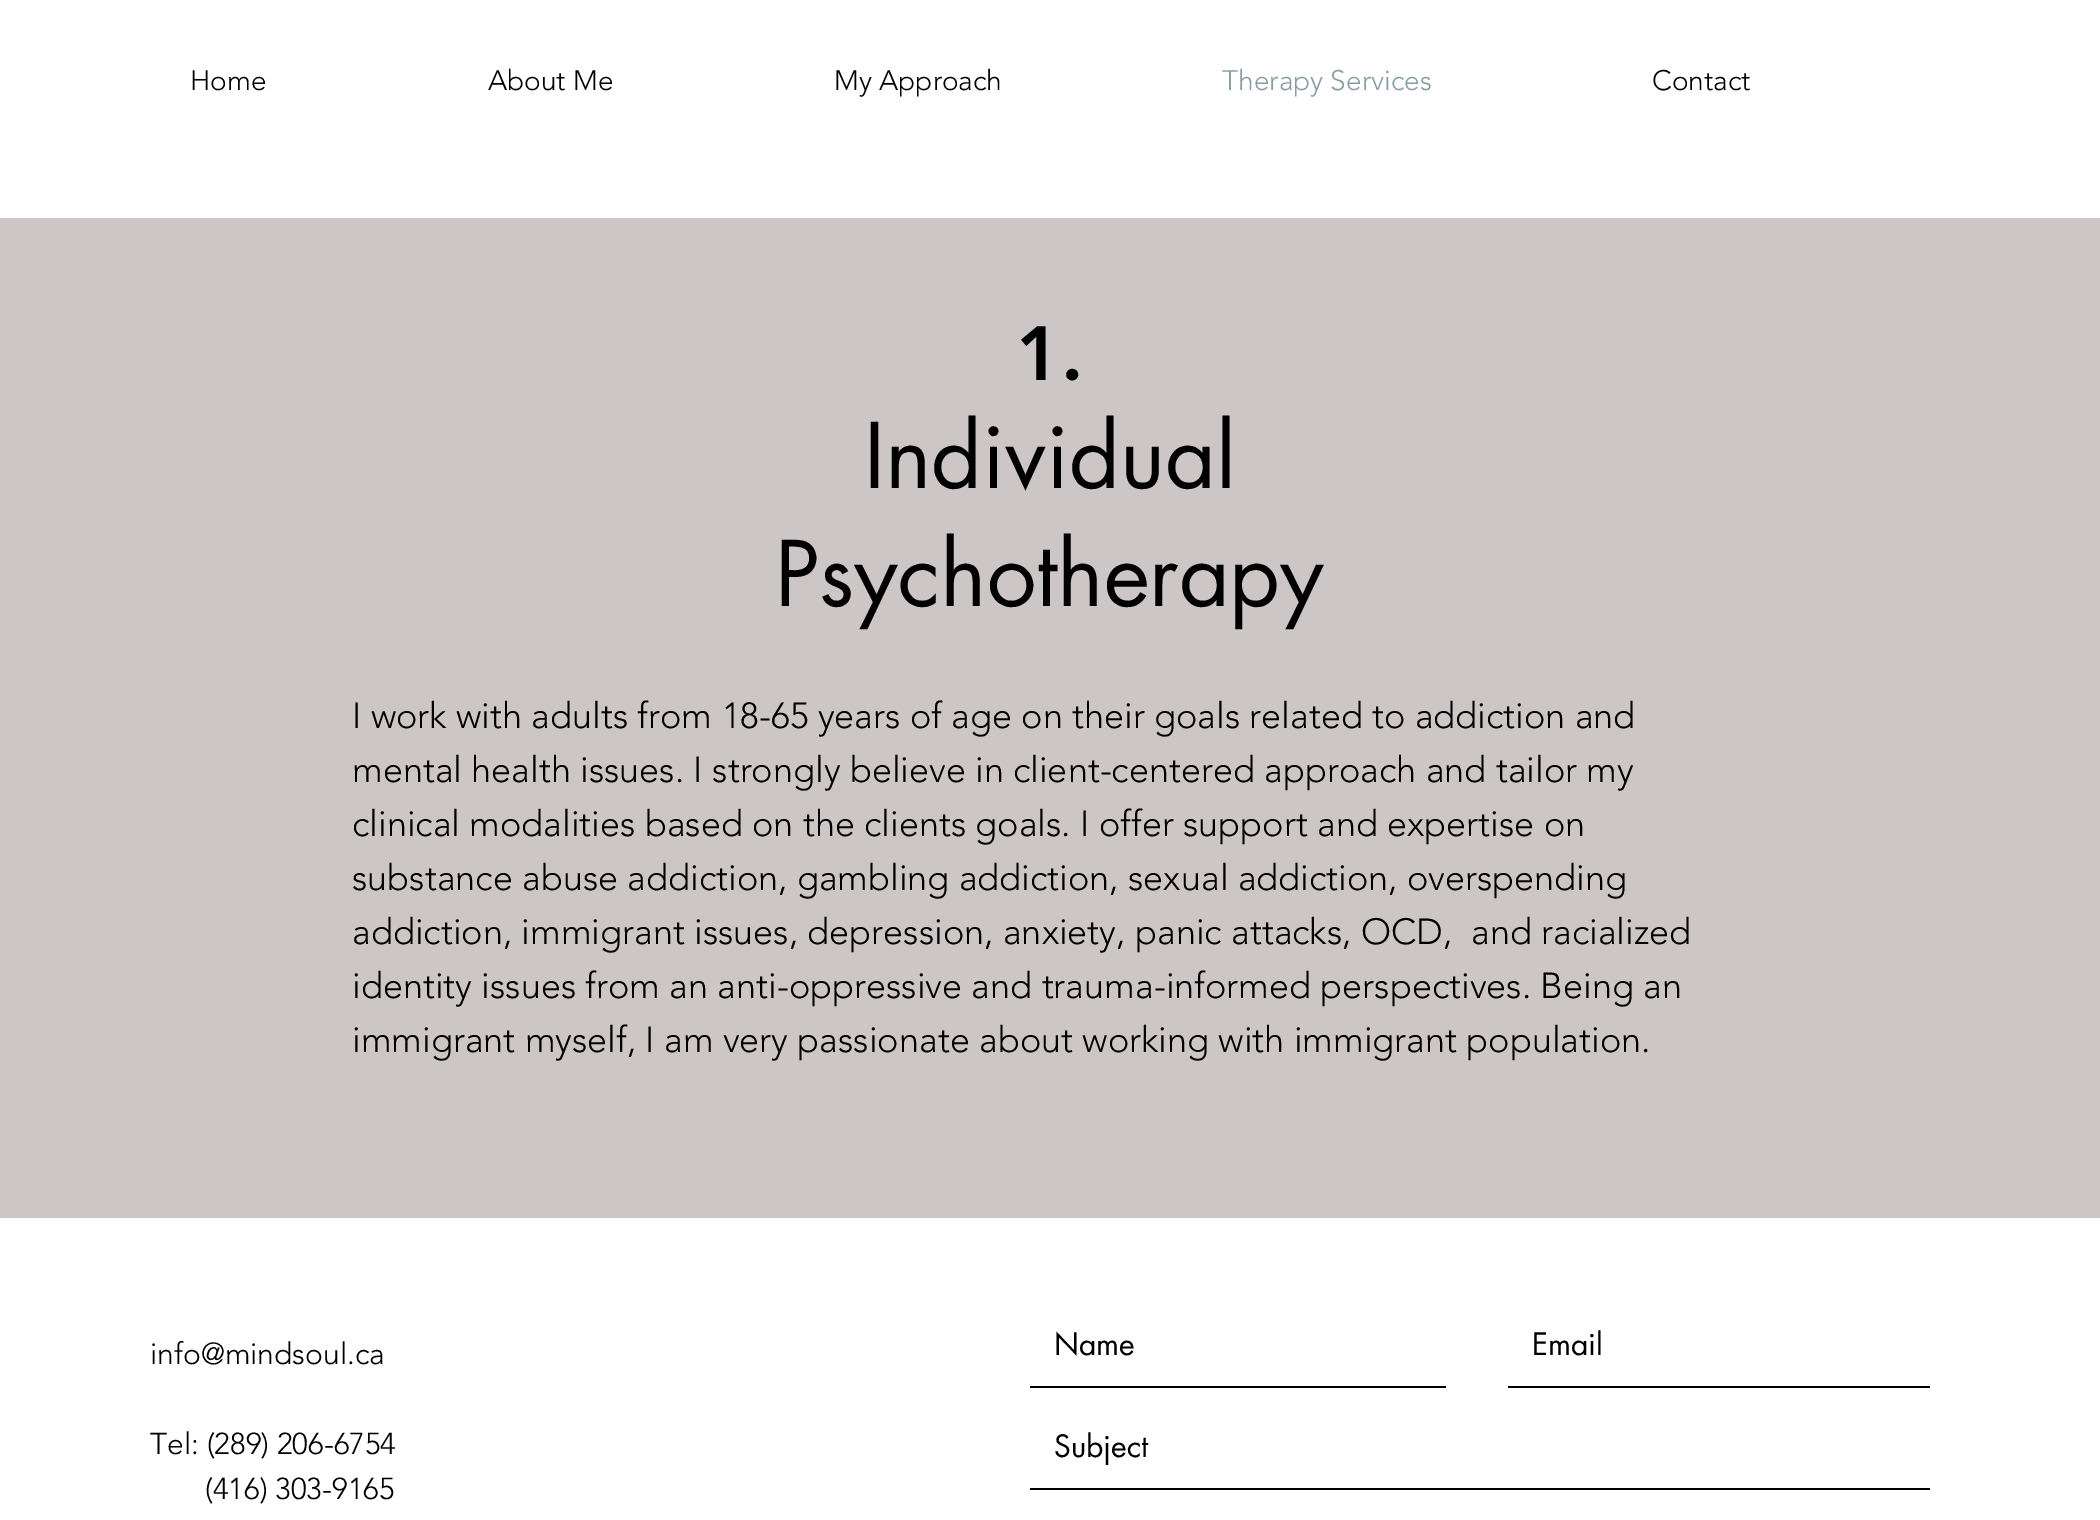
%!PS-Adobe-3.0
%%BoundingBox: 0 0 2100 1520
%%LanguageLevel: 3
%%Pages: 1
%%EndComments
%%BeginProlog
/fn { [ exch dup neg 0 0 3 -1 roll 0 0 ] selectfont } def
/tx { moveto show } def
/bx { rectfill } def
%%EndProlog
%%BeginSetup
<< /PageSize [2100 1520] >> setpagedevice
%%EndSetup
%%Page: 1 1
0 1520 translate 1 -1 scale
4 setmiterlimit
1 setgray
0 0 2100 1520 bx
/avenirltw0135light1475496-Light 28 fn
0 setgray
(Home) 190 90 tx
(About Me) 488 90 tx
(My Approach) 834 90 tx
0.537 0.616 0.639 setrgbcolor
(Therapy Services) 1222 90 tx
0 setgray
(Contact) 1652 90 tx
0.8 0.776 0.776 setrgbcolor
0 218 2100 1000 bx
/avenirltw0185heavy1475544-Black 76 fn
0 setgray
(1.) 1016 380 tx
/futura-Regular 88 fn
(Individual) 864 488 tx
(Psychotherapy) 775 606 tx
/avenirltw0135light1475496-Light 36 fn
(I work with adults from 18-65 years of age on their goals related to addiction and) 352 728 tx
(mental health issues. I strongly believe in client-centered approach and tailor my) 352 782 tx
(clinical modalities based on the clients goals. I offer support and expertise on) 352 836 tx
(substance abuse addiction, gambling addiction, sexual addiction, overspending) 352 890 tx
(addiction, immigrant issues, depression, anxiety, panic attacks, OCD,  and racialized) 352 944 tx
(identity issues from an anti-oppressive and trauma-informed perspectives. Being an) 352 998 tx
(immigrant myself, I am very passionate about working with immigrant population.) 352 1052 tx
/avenirltw0135light1475496-Light 30 fn
(info@mindsoul.ca) 150 1364 tx
(Tel: \(289\) 206-6754) 150 1454 tx
(\(416\) 303-9165) 205 1499 tx
1030 1386 416 2 bx
/futura-Regular 30 fn
(Name) 1054 1355 tx
1508 1386 422 2 bx
(Email) 1532 1355 tx
1030 1488 900 2 bx
(Subject) 1054 1457 tx
showpage
%%EOF
